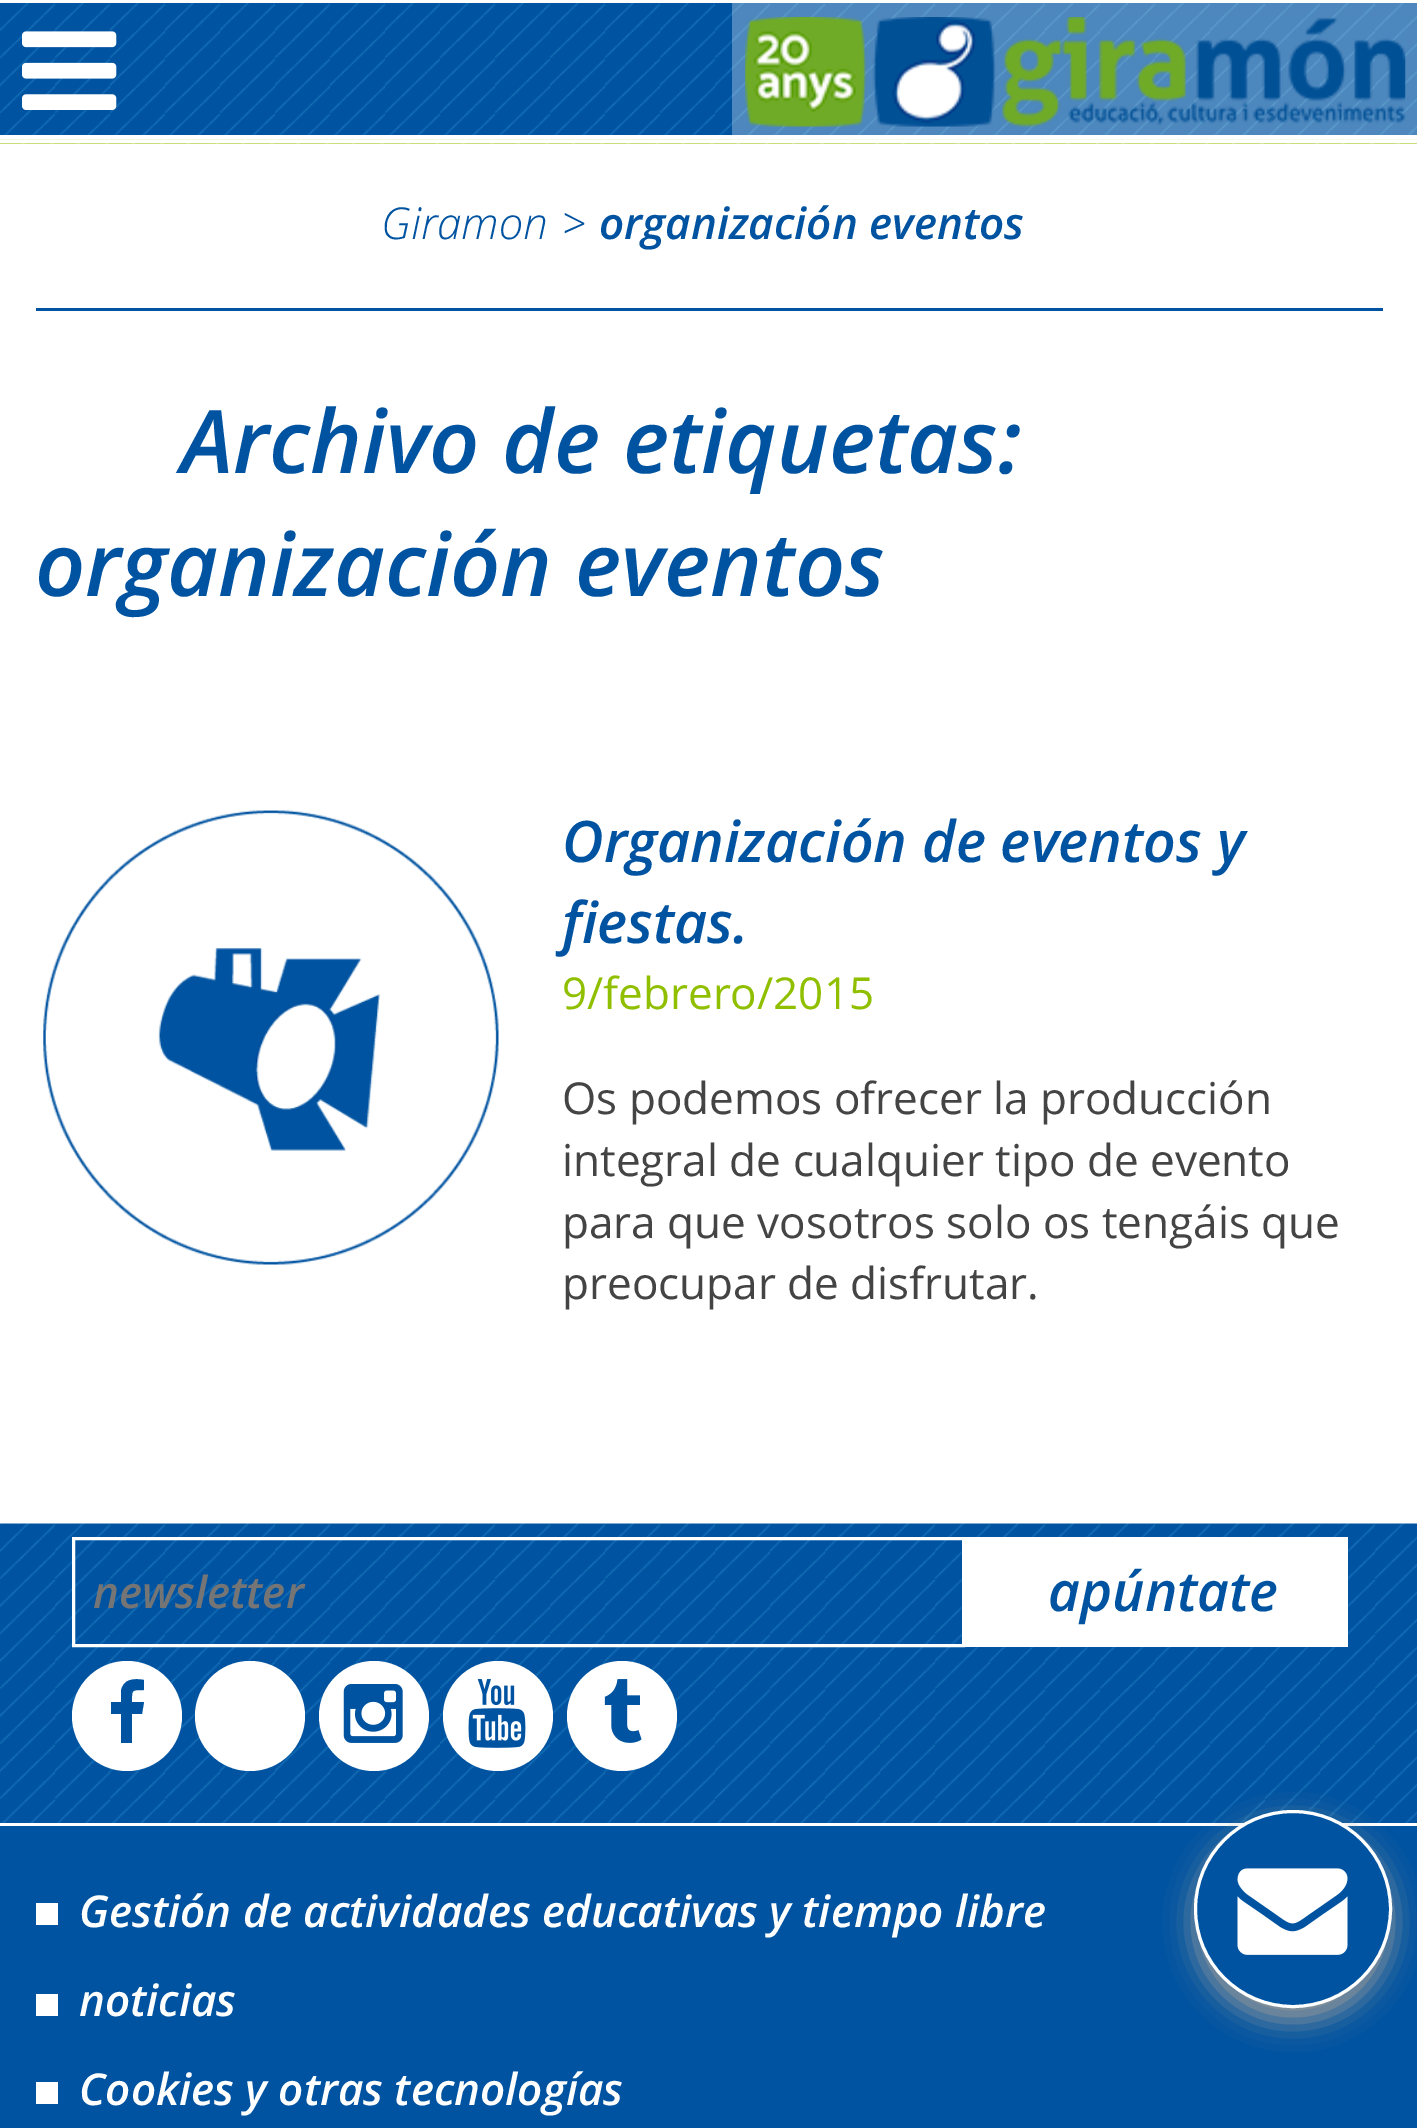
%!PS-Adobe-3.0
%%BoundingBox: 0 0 1417 2128
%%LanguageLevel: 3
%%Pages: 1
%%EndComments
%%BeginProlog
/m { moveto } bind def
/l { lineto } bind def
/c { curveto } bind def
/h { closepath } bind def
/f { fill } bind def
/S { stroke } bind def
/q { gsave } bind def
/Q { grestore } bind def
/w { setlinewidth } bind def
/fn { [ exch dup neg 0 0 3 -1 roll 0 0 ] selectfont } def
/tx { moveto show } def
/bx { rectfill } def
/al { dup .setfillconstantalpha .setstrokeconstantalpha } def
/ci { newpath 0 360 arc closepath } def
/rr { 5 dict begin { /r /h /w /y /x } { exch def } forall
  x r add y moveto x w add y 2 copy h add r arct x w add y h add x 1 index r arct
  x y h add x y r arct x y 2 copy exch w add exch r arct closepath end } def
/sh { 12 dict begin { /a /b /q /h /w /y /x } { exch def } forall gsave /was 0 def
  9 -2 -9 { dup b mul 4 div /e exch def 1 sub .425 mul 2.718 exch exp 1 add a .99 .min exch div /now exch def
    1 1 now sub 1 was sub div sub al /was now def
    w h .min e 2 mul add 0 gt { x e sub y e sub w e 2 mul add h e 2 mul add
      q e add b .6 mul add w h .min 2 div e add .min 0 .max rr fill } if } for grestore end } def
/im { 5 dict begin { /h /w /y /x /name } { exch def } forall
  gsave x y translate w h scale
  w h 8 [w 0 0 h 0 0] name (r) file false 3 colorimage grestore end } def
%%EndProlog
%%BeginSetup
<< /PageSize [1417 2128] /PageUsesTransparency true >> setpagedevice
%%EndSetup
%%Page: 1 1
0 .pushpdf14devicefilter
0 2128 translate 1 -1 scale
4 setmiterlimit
1 setgray
0 0 1417 2128 bx
(image0.raw) 0 3 1417 132 im
(image1.raw) 22 31 95 79 im
(image3.raw) 0 139 1417 5 im
0.3 al
732 3 685 137 bx
1 al
(image2.raw) 745 17 661 110 im
0 140 1417 3 bx
0 0.325 0.627 setrgbcolor
0 1826 1417 302 bx
(image6.raw) 0 1523 1417 300 im
0.6 setgray
1194 1823 198 198 99 14 1 sh
0 0.325 0.627 setrgbcolor
1293 1909 97.5 ci q f Q
1 setgray
3 w
S
(image4.raw) 1237 1868 111 87 im
0 0.325 0.627 setrgbcolor
36 308 1347 3 bx
/OpenSans-LightItalic 44 fn
(Giramon) 381 239 tx
(>) 561 239 tx
/OpenSans-SemiBoldItalic 44 fn
(organización eventos) 599 239 tx
/OpenSans-SemiBoldItalic 88 fn
(Archivo de etiquetas:) 181 473 tx
(organización eventos) 35 596 tx
(image5.raw) 43 810 456 455 im
/OpenSans-SemiBoldItalic 57.25 fn
(Organización de eventos y) 562 862 tx
(fiestas.) 562 943 tx
/OpenSans-Regular 44 fn
0.565 0.749 0 setrgbcolor
(9/febrero/2015) 562 1009 tx
0.267 setgray
(Os podemos ofrecer la producción) 562 1114 tx
(integral de cualquier tipo de evento) 562 1176 tx
(para que vosotros solo os tengáis que) 562 1238 tx
(preocupar de disfrutar.) 562 1299 tx
1 setgray
73.5 1538.5 890 107 rectstroke
/OpenSans-SemiBoldItalic 44 fn
0.459 setgray
(newsletter) 93 1608 tx
1 setgray
965 1537 383 110 bx
/OpenSans-SemiBoldItalic 55 fn
0 0.325 0.627 setrgbcolor
(apúntate) 1048 1611 tx
1 setgray
127 1716 55 ci f
0 0.325 0.627 setrgbcolor
144 1680 m 144 1690 l 131 1690 132 1690 132 1702 c 144 1702 l 142 1714 l 132 1714 l 132 1743 l 121 1743 l 121 1714 l 111 1714 l 111 1702 l 121 1702 l 121 1691 l 123 1679 134 1678 144 1680 c h f
1 setgray
250 1716 55 ci f
374 1716 55 ci f
(image7.raw) 343 1684 60 59 im
498 1716 55 ci f
(image8.raw) 468 1679 58 69 im
622 1716 55 ci f
(image9.raw) 604 1679 38 64 im
36 1903 22 22 bx
/OpenSans-SemiBoldItalic 44 fn
(Gestión de actividades educativas y tiempo libre) 79 1927 tx
36 1994 22 22 bx
(noticias) 79 2016 tx
36 2082 22 22 bx
(Cookies y otras tecnologías) 79 2105 tx
.poppdf14devicefilter showpage
%%EOF
